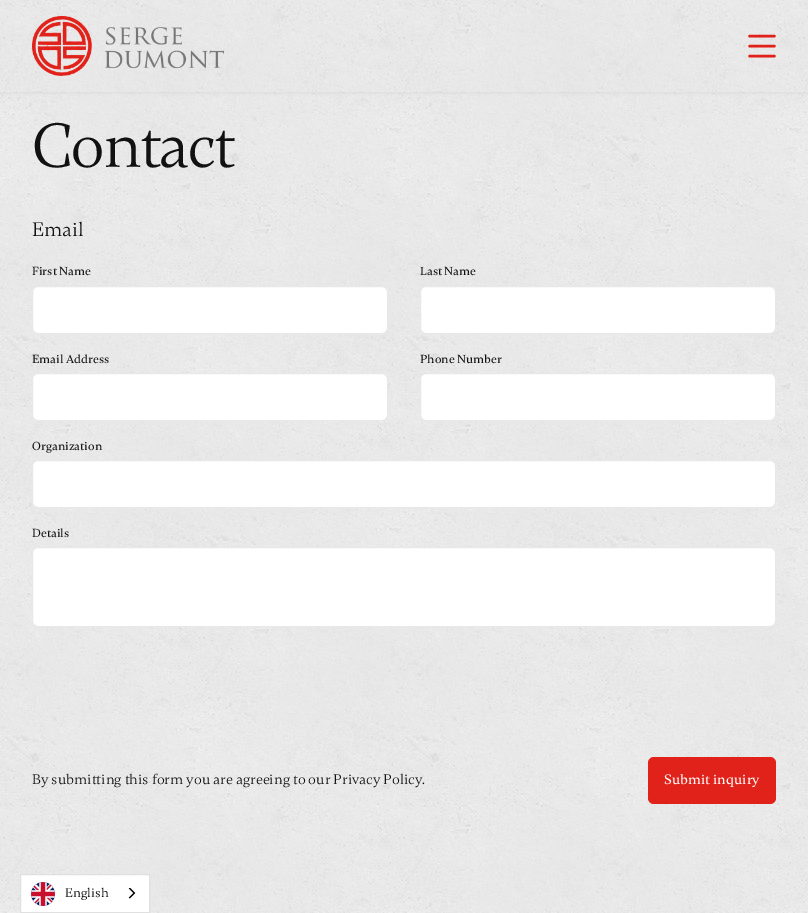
%!PS-Adobe-3.0
%%BoundingBox: 0 0 808 913
%%LanguageLevel: 3
%%Pages: 1
%%EndComments
%%BeginProlog
/m { moveto } bind def
/l { lineto } bind def
/h { closepath } bind def
/f { fill } bind def
/S { stroke } bind def
/q { gsave } bind def
/Q { grestore } bind def
/w { setlinewidth } bind def
/fn { [ exch dup neg 0 0 3 -1 roll 0 0 ] selectfont } def
/tx { moveto show } def
/bx { rectfill } def
/al { dup .setfillconstantalpha .setstrokeconstantalpha } def
/rr { 5 dict begin { /r /h /w /y /x } { exch def } forall
  x r add y moveto x w add y 2 copy h add r arct x w add y h add x 1 index r arct
  x y h add x y r arct x y 2 copy exch w add exch r arct closepath end } def
/sh { 12 dict begin { /a /b /q /h /w /y /x } { exch def } forall gsave /was 0 def
  9 -2 -9 { dup b mul 4 div /e exch def 1 sub .425 mul 2.718 exch exp 1 add a .99 .min exch div /now exch def
    1 1 now sub 1 was sub div sub al /was now def
    w h .min e 2 mul add 0 gt { x e sub y e sub w e 2 mul add h e 2 mul add
      q e add b .6 mul add w h .min 2 div e add .min 0 .max rr fill } if } for grestore end } def
/im { 5 dict begin { /h /w /y /x /name } { exch def } forall
  gsave x y translate w h scale
  w h 8 [w 0 0 h 0 0] name (r) file false 3 colorimage grestore end } def
%%EndProlog
%%BeginSetup
<< /PageSize [808 913] /PageUsesTransparency true >> setpagedevice
%%EndSetup
%%Page: 1 1
0 .pushpdf14devicefilter
0 913 translate 1 -1 scale
4 setmiterlimit
1 setgray
0 0 808 913 bx
(image0.raw) 0 92 808 821 im
0 setgray
0 -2 808 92 0 2.5 0.2 sh
(image1.raw) 0 0 808 92 im
(image2.raw) 32 16 192 60 im
0.882 0.133 0.102 setrgbcolor
2.4 w
1 setlinecap
749.5 56 m 774.5 56 l 749.5 36 m 774.5 36 l 749.5 46 m 774.5 46 l S
/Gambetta-Regular 64 fn
0.067 setgray
32 167 m -2.5 0 (Contact) ashow
/Gambetta-Regular 20 fn
(Email) 32 236 tx
/Gambetta-Medium 12 fn
(First Name) 32 275 tx
1 setgray
32.5 286.5 355 47 5.5 rr q f Q
0.91 setgray
1 w
0 setlinecap
S
0.067 setgray
(Last Name) 420 275 tx
1 setgray
420.5 286.5 355 47 5.5 rr q f Q
0.91 setgray
S
0.067 setgray
(Email Address) 32 363 tx
1 setgray
32.5 373.5 355 47 5.5 rr q f Q
0.91 setgray
S
0.067 setgray
(Phone Number) 420 363 tx
1 setgray
420.5 373.5 355 47 5.5 rr q f Q
0.91 setgray
S
0.067 setgray
(Organization) 32 450 tx
1 setgray
32.5 460.5 743 47 5.5 rr q f Q
0.91 setgray
S
0.067 setgray
(Details) 32 537 tx
1 setgray
32.5 547.5 743 79 5.5 rr q f Q
0.91 setgray
S
/Gambetta-Regular 14.4 fn
0.067 setgray
(By submitting this form you are agreeing to our Privacy Policy.) 32 784 tx
0.882 0.133 0.102 setrgbcolor
648 757 128 47 6 rr f
/Gambetta-Medium 14 fn
1 setgray
(Submit inquiry) 664 784 tx
20.5 874.5 m 149.5 874.5 l 149.5 912.5 l 20.5 912.5 l h q f Q
0.878 setgray
S
(image3.raw) 31 882 24 24 im
/Gambetta-Regular 13 fn
0 setgray
(English) 65 897 tx
(image4.raw) 128 888 8 11 im
.poppdf14devicefilter showpage
%%EOF
